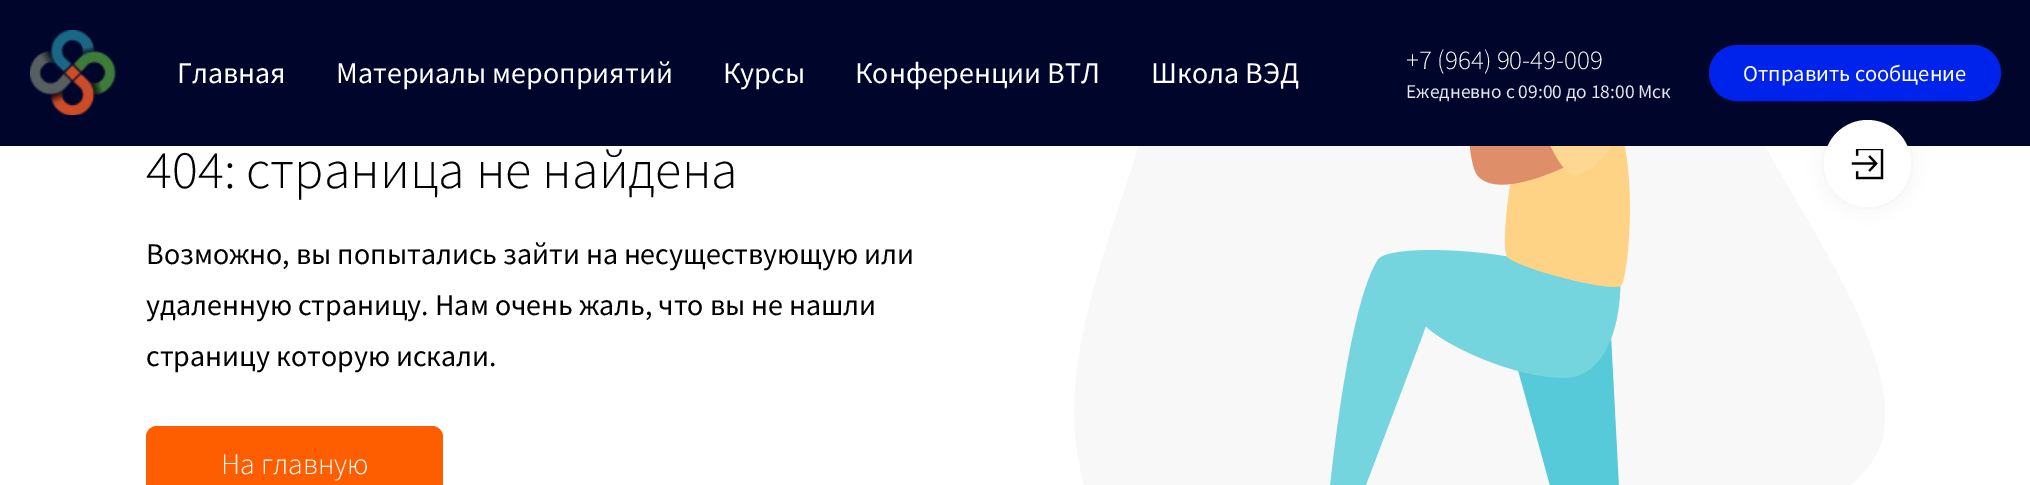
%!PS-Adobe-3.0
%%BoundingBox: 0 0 2030 485
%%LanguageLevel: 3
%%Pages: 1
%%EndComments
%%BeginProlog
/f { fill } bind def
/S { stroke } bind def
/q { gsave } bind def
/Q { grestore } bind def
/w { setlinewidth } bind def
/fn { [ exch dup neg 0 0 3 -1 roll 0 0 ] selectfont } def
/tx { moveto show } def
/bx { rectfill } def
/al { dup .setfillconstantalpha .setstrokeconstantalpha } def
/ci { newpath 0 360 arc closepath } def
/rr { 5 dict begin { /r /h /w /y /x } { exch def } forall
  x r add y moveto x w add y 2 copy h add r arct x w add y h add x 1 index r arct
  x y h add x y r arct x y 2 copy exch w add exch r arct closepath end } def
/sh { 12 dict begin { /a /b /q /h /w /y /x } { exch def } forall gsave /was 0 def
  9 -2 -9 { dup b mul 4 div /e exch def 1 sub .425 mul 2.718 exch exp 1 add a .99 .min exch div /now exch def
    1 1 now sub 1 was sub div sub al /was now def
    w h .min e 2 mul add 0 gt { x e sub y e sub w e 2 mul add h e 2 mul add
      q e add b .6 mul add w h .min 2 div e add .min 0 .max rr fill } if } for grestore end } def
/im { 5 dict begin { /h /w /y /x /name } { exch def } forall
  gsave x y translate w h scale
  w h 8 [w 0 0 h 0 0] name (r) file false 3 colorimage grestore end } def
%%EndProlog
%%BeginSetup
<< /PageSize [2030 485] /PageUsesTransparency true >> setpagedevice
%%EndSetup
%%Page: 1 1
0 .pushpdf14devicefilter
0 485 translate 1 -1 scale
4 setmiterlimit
1 setgray
0 0 2030 485 bx
0 0.024 0.169 setrgbcolor
0 0 2030 146 bx
(image0.raw) 30 30 86 85 im
/SourceSansPro-Regular 30 fn
1 setgray
(Главная) 177 83 tx
(Материалы мероприятий) 336 83 tx
(Курсы) 723 83 tx
(Конференции ВТЛ) 855 83 tx
(Школа ВЭД) 1151 83 tx
/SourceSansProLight-Light 27 fn
(+7 \(964\) 90-49-009) 1406 69 tx
/SourceSansPro-Regular 19.5 fn
0.894 0.898 0.929 setrgbcolor
(Ежедневно с 09:00 до 18:00 Мск) 1406 98 tx
0 0.137 0.922 setrgbcolor
1710 46 290 54 27 rr q f Q
2 w
S
/SourceSansPro-Regular 22.5 fn
1 setgray
(Отправить сообщение) 1743 81 tx
(image2.raw) 1074 146 811 339 im
0 setgray
1824 120 87 87 43.5 11 0.06 sh
1 setgray
1867.5 163.5 43.5 ci f
(image1.raw) 1851 149 33 31 im
/SourceSansProLight-Light 54 fn
0 setgray
(404: страница не найдена) 146 188 tx
/SourceSansPro-Regular 30 fn
(Возможно, вы попытались зайти на несуществующую или) 146 264 tx
(удаленную страницу. Нам очень жаль, что вы не нашли) 146 315 tx
(страницу которую искали.) 146 366 tx
1 0.369 0 setrgbcolor
146 426 297 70 11 rr f
/SourceSansProLight-Light 30 fn
1 setgray
(На главную) 221 474 tx
.poppdf14devicefilter showpage
%%EOF
